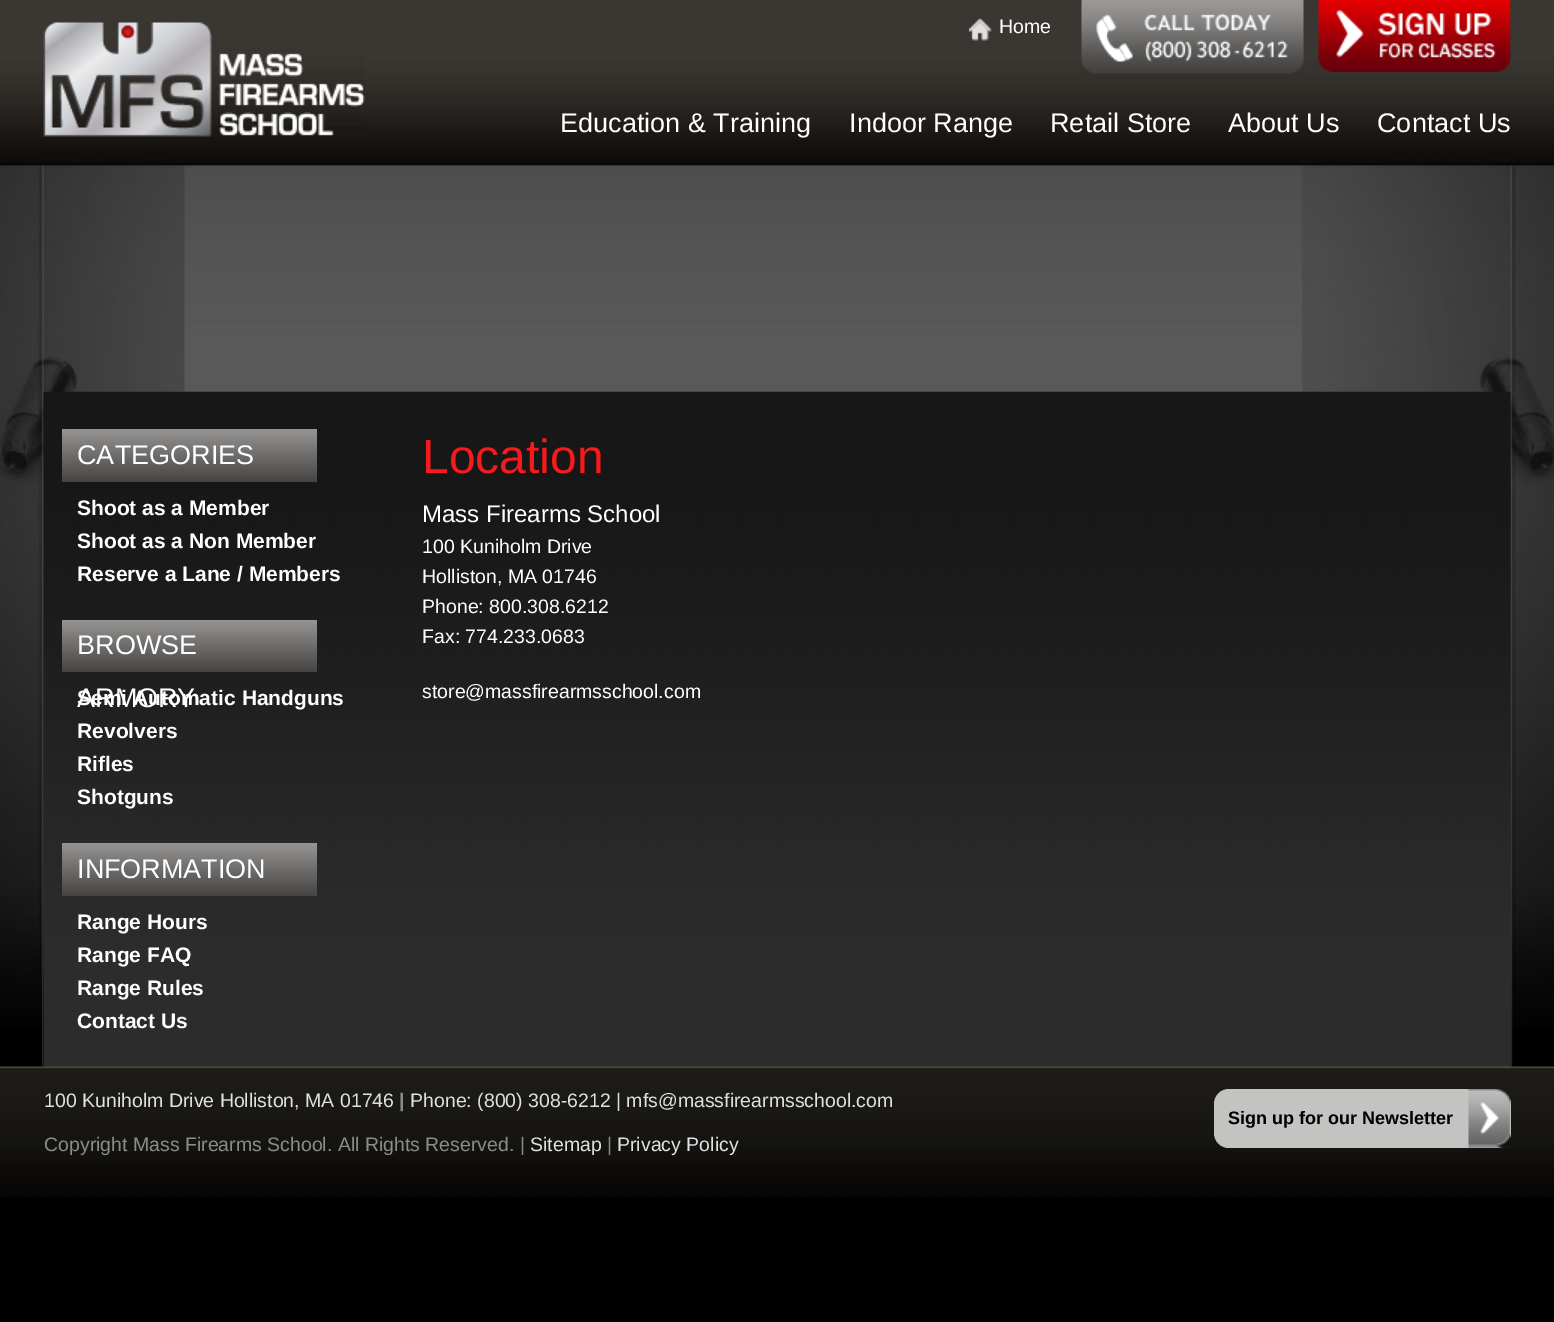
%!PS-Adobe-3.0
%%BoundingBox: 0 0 1554 1322
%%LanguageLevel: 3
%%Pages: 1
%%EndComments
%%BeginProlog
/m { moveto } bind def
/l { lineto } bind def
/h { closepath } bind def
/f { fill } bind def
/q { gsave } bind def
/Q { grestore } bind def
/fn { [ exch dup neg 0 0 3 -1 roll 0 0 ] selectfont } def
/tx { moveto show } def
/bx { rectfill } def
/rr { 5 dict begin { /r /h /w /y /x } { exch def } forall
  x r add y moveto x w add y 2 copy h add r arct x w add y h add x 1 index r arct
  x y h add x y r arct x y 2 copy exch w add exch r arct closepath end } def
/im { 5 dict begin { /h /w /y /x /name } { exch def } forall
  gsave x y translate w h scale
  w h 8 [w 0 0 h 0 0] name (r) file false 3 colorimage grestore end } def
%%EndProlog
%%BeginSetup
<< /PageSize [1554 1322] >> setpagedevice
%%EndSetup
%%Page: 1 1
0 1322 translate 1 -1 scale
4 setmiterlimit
0 setgray
0 0 1554 1322 bx
(image0.raw) 0 0 1554 1027 im
(image1.raw) 43 22 322 115 im
(image2.raw) 969 18 23 23 im
/LiberationSans-Regular 19.5 fn
1 setgray
(Home) 999 33 tx
(image3.raw) 1081 0 223 74 im
(image4.raw) 1318 0 193 72 im
/LiberationSans-Regular 27 fn
(Education & Training) 560 132 tx
(Indoor Range) 849 132 tx
(Retail Store) 1050 132 tx
(About Us) 1228 132 tx
(Contact Us) 1377 132 tx
(image5.raw) 38 166 1478 901 im
0.176 0.173 0.173 setrgbcolor
44 392 1467 675 bx
(image6.raw) 43 391 1468 582 im
q 62 429 m 317 429 l 317 482 l 62 482 l h clip newpath
<< /ShadingType 2 /ColorSpace /DeviceRGB /Coords [189 429 189 482] /Extend [true true] /Function << /FunctionType 2 /Domain [0 1] /C0 [0.588 0.584 0.576] /C1 [0.271 0.267 0.259] /N 1 >> >> shfill Q
1 setgray
(CATEGORIES) 77 464 tx
/LiberationSans-Bold 21 fn
(Shoot as a Member) 77 515 tx
(Shoot as a Non Member) 77 548 tx
(Reserve a Lane / Members) 77 581 tx
q 62 620 m 317 620 l 317 672 l 62 672 l h clip newpath
<< /ShadingType 2 /ColorSpace /DeviceRGB /Coords [189 620 189 672] /Extend [true true] /Function << /FunctionType 2 /Domain [0 1] /C0 [0.588 0.584 0.576] /C1 [0.271 0.267 0.259] /N 1 >> >> shfill Q
/LiberationSans-Regular 27 fn
(BROWSE) 77 654 tx
/LiberationSans-Bold 21 fn
(Semi Automatic Handguns) 77 705 tx
/LiberationSans-Regular 27 fn
(ARMORY) 77 707 tx
/LiberationSans-Bold 21 fn
(Revolvers) 77 738 tx
(Rifles) 77 771 tx
(Shotguns) 77 804 tx
q 62 843 m 317 843 l 317 896 l 62 896 l h clip newpath
<< /ShadingType 2 /ColorSpace /DeviceRGB /Coords [189 843 189 896] /Extend [true true] /Function << /FunctionType 2 /Domain [0 1] /C0 [0.588 0.584 0.576] /C1 [0.271 0.267 0.259] /N 1 >> >> shfill Q
/LiberationSans-Regular 27 fn
(INFORMATION) 77 878 tx
/LiberationSans-Bold 21 fn
(Range Hours) 77 929 tx
(Range FAQ) 77 962 tx
(Range Rules) 77 995 tx
(Contact Us) 77 1028 tx
/LiberationSans-Regular 48 fn
0.961 0.102 0.11 setrgbcolor
(Location) 422 473 tx
/LiberationSans-Regular 24 fn
1 setgray
(Mass Firearms School) 422 522 tx
/LiberationSans-Regular 19.5 fn
(100 Kuniholm Drive) 422 553 tx
(Holliston, MA 01746) 422 583 tx
(Phone: 800.308.6212) 422 613 tx
(Fax: 774.233.0683) 422 643 tx
(store@massfirearmsschool.com) 422 698 tx
(image7.raw) 0 1066 1554 131 im
0.878 setgray
(100 Kuniholm Drive Holliston, MA 01746) 44 1107 tx
/LiberationSans-Bold 19.5 fn
0.545 setgray
(|) 399 1107 tx
/LiberationSans-Regular 19.5 fn
0.878 setgray
(Phone: \(800\) 308-6212 | mfs@massfirearmsschool.com) 410 1107 tx
0.545 setgray
(Copyright Mass Firearms School. All Rights Reserved. |) 44 1151 tx
0.878 setgray
(Sitemap) 530 1151 tx
0.545 setgray
(|) 607 1151 tx
0.878 setgray
(Privacy Policy) 617 1151 tx
0.765 0.765 0.761 setrgbcolor
1214 1089 297 59 15 rr f
/LiberationSans-Bold 18 fn
0 setgray
(Sign up for our Newsletter) 1228 1124 tx
(image8.raw) 1468 1089 43 59 im
showpage
%%EOF
